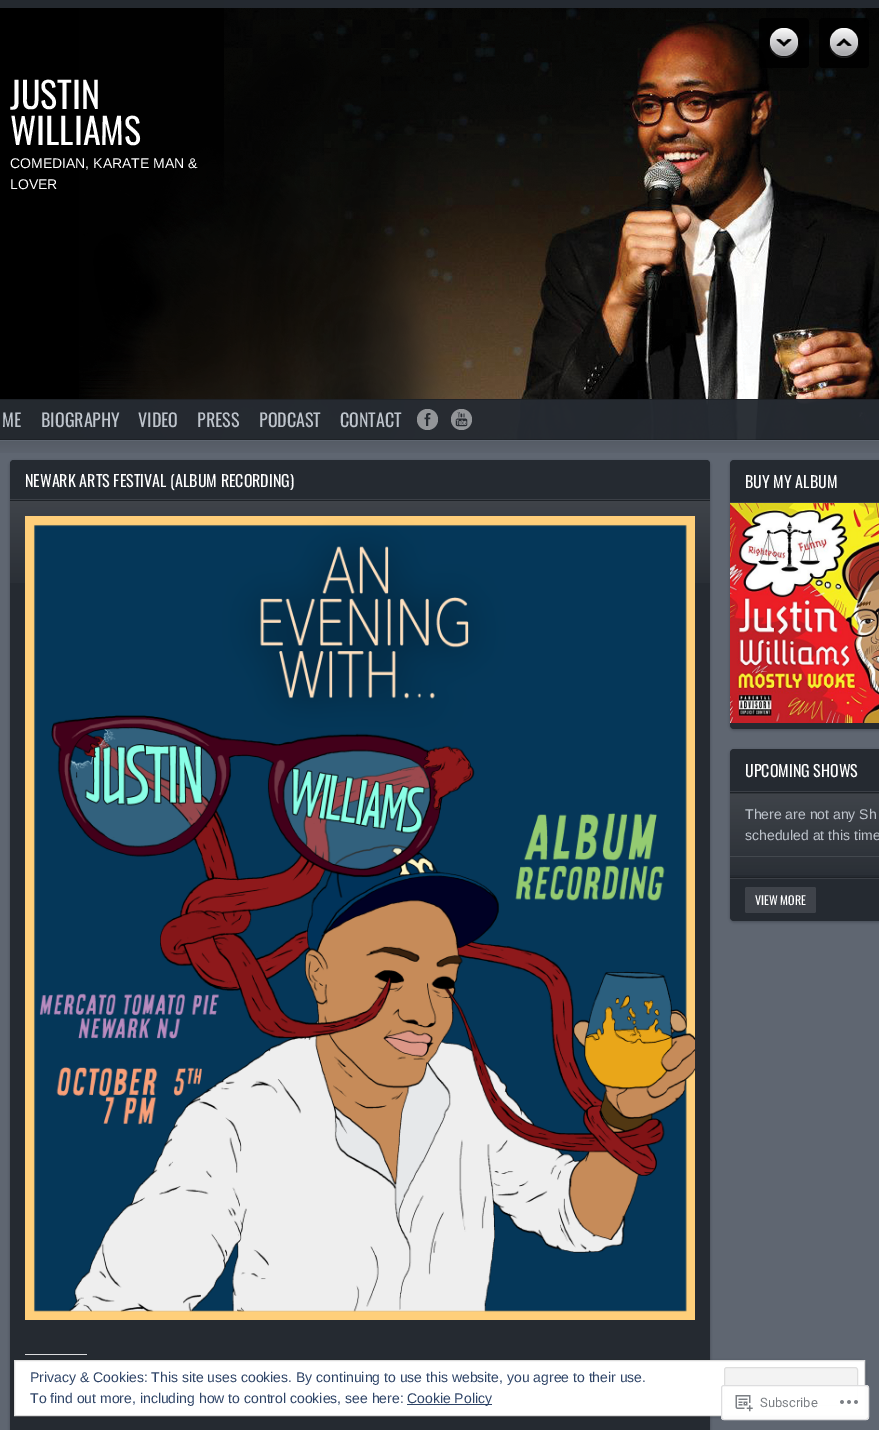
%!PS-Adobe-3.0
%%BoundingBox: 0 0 879 1430
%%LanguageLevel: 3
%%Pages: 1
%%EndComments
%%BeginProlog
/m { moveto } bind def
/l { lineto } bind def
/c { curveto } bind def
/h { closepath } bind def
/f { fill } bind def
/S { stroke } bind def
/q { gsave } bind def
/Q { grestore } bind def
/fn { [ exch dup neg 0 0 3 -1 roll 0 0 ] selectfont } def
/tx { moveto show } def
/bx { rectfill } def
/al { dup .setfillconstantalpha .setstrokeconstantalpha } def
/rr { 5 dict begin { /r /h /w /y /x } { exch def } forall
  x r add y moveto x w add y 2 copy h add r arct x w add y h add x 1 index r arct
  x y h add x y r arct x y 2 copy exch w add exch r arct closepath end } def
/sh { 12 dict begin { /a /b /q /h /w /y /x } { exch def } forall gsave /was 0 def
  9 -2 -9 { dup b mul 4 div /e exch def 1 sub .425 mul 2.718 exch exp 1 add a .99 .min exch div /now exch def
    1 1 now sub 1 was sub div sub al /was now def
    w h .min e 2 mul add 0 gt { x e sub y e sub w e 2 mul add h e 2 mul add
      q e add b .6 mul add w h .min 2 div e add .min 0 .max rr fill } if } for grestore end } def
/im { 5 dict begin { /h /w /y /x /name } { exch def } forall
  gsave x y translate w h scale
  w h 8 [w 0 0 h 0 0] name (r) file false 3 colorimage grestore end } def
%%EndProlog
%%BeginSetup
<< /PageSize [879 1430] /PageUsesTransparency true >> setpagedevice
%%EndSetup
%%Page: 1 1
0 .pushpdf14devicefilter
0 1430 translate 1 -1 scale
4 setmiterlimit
0.373 0.4 0.443 setrgbcolor
0 0 879 1430 bx
(image0.raw) 0 441 879 12 im
0 setgray
0 0 79 440 bx
(image1.raw) 79 0 800 440 im
0.85 al
759 18 50 50 4 rr f
1 al
(image2.raw) 769 28 30 30 im
0.85 al
819 18 50 50 4 rr f
1 al
(image3.raw) 829 28 30 30 im
0.97 al
0.145 0.165 0.192 setrgbcolor
0 0 879 8 bx
/Oswald-Regular 36 fn
1 al
1 setgray
(JUSTIN) 10 109 tx
(WILLIAMS) 10 145 tx
/LiberationSans-Regular 14 fn
(COMEDIAN, KARATE MAN &) 10 168 tx
(LOVER) 10 189 tx
0.97 al
0.145 0.165 0.192 setrgbcolor
0 399 879 41 bx
0.2 al
0 setgray
0 399 879 1 bx
0 439 879 1 bx
/Oswald-Regular 18 fn
1 al
0.745 0.769 0.8 setrgbcolor
(ME) 2 427 tx
(BIOGRAPHY) 41 427 tx
(VIDEO) 138 427 tx
(PRESS) 197 427 tx
(PODCAST) 259 427 tx
(CONTACT) 340 427 tx
(image4.raw) 417 409 21 21 im
(image5.raw) 451 409 21 21 im
0 setgray
10 461 700 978 4 1.5 0.25 sh
0.145 0.165 0.192 setrgbcolor
10 460 700 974 4 rr f
14 460 m 706 460 l 708 460 710 462 710 464 c 710 500 l 10 500 l 10 464 l 10 462 12 460 14 460 c h f
0.231 0.247 0.275 setrgbcolor
10 499 700 1 bx
/Oswald-Regular 16 fn
1 setgray
(NEWARK ARTS FESTIVAL \(ALBUM RECORDING\)) 25 487 tx
(image6.raw) 10 501 700 82 im
0.118 0.133 0.153 setrgbcolor
10 500 700 1 bx
(image7.raw) 25 516 670 804 im
0.863 0.863 0.871 setrgbcolor
25 1354 62 1 bx
0 setgray
730 461 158 269 4 1.5 0.25 sh
0.145 0.165 0.192 setrgbcolor
730 460 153 269 4 rr f
0.231 0.247 0.275 setrgbcolor
730 502 149 1 bx
1 setgray
(BUY MY ALBUM) 745 488 tx
(image8.raw) 730 503 149 220 im
0 setgray
730 750 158 172 4 1.5 0.25 sh
0.145 0.165 0.192 setrgbcolor
730 749 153 172 4 rr f
0.231 0.247 0.275 setrgbcolor
730 791 149 1 bx
1 setgray
(UPCOMING SHOWS) 745 777 tx
(image9.raw) 730 794 149 81 im
0.118 0.133 0.153 setrgbcolor
730 792 149 1 bx
0.196 0.212 0.231 setrgbcolor
730 793 149 1 bx
0.263 0.282 0.306 setrgbcolor
730 856 149 1 bx
/LiberationSans-Regular 14 fn
0.745 0.769 0.8 setrgbcolor
(There are not any Sh) 745 819 tx
(scheduled at this time) 745 840 tx
0.118 0.133 0.153 setrgbcolor
730 877 149 1 bx
0.231 0.247 0.275 setrgbcolor
730 878 149 1 bx
0.247 0.263 0.29 setrgbcolor
745 887 71 26 2 rr f
/Oswald-Regular 12 fn
1 setgray
(VIEW MORE) 755 905 tx
0 setgray
14 1361 851 56 4 1.5 0.25 sh
1 setgray
14.5 1360.5 m 864.5 1360.5 l 864.5 1415.5 l 14.5 1415.5 l h q f Q
0.871 setgray
S
/LiberationSans-Regular 14 fn
0.18 0.267 0.404 setrgbcolor
(Privacy & Cookies: This site uses cookies. By continuing to use this website, you agree to their use.) 30 1382 tx
0.953 setgray
724.5 1367.5 133 38 2.5 rr q f Q
0.871 setgray
S
0.18 0.267 0.404 setrgbcolor
(To find out more, including how to control cookies, see here:) 30 1403 tx
407 1404 85 1 bx
(Cookie Policy) 407 1403 tx
0.98 al
1 setgray
721 1385 148 35 3 rr f
0.863 0.863 0.871 setrgbcolor
721.5 1385.5 147 34 2.5 rr S
1 al
(image10.raw) 735 1395 18 17 im
/Roboto-Regular 13 fn
0.482 0.498 0.518 setrgbcolor
(Subscribe) 760 1407 tx
(image11.raw) 840 1400 18 4 im
.poppdf14devicefilter showpage
%%EOF
